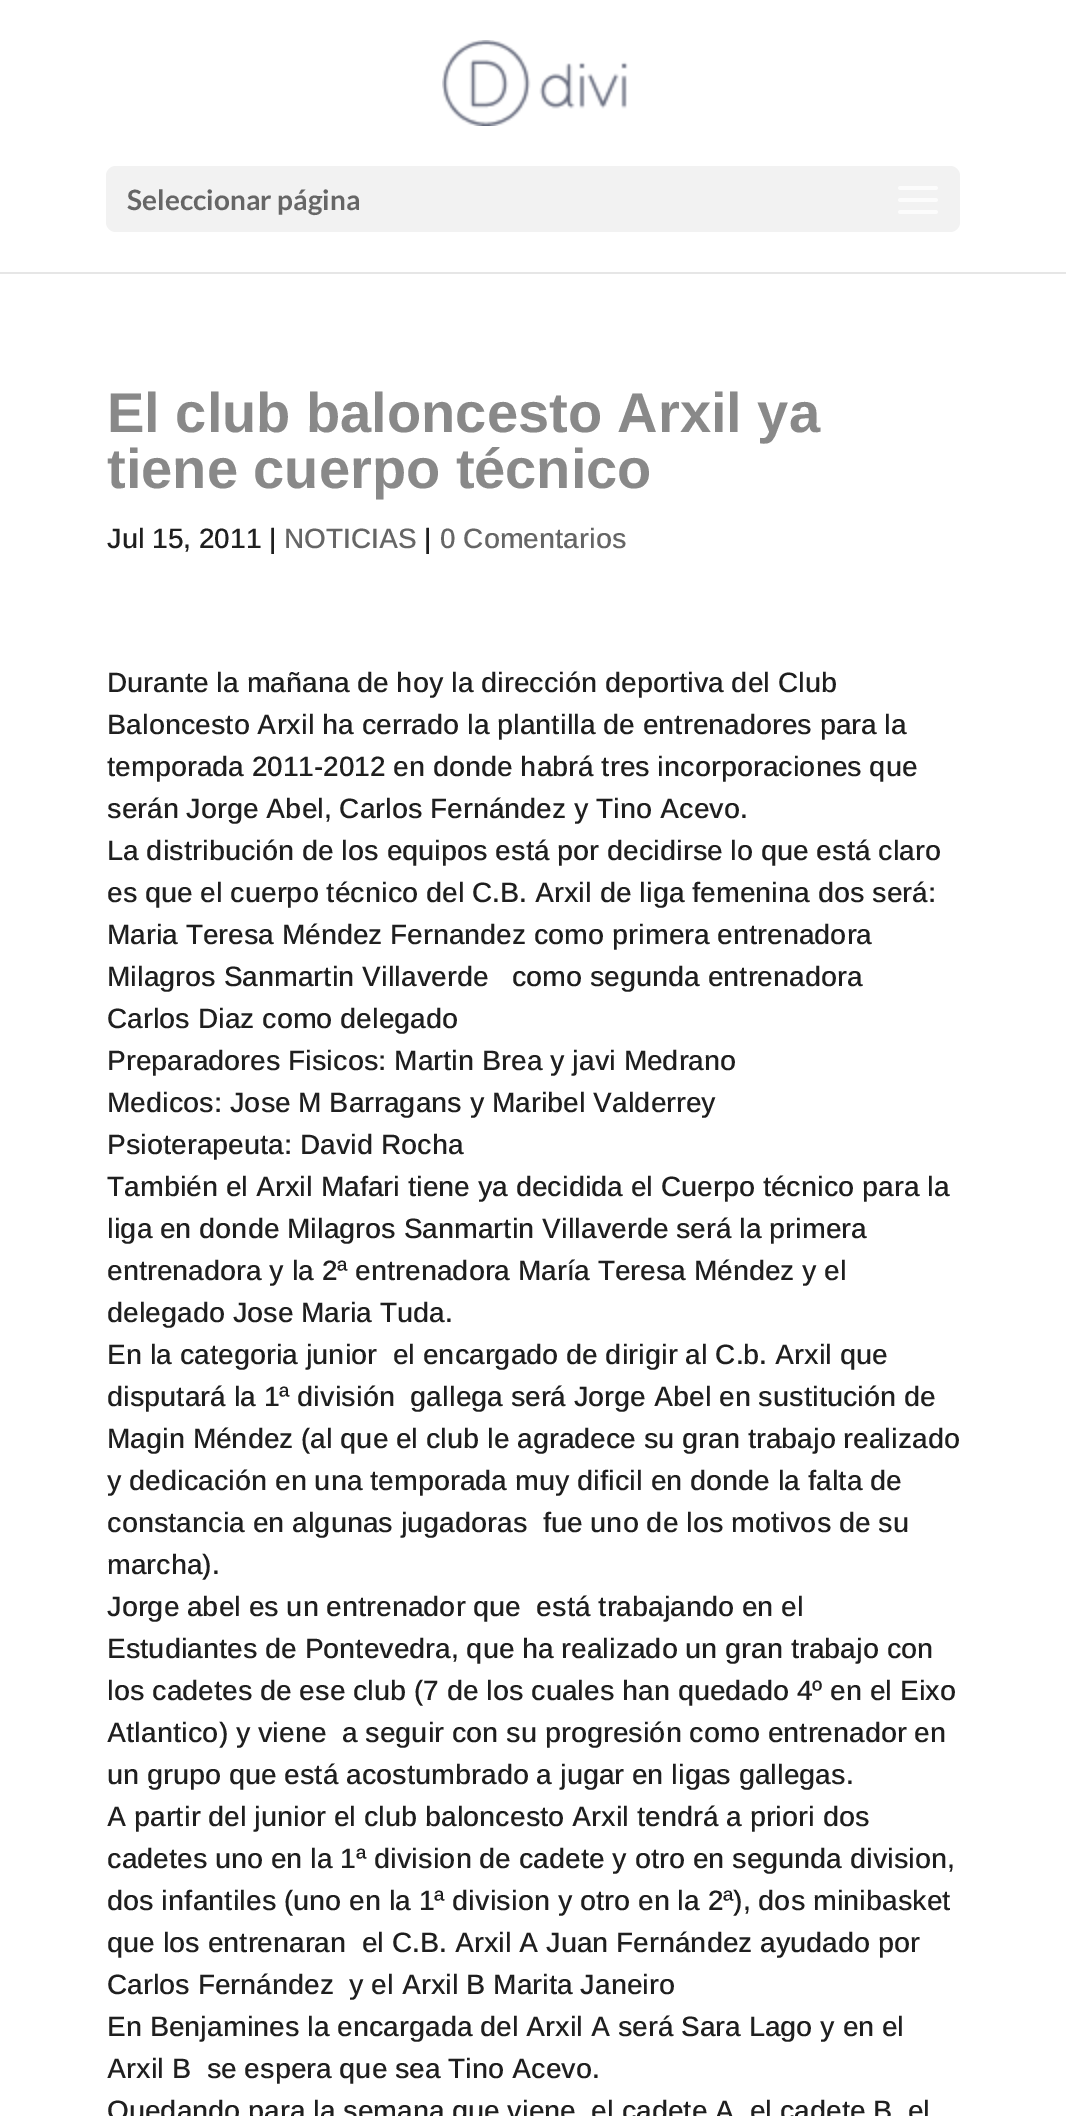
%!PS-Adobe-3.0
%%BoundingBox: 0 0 1066 2116
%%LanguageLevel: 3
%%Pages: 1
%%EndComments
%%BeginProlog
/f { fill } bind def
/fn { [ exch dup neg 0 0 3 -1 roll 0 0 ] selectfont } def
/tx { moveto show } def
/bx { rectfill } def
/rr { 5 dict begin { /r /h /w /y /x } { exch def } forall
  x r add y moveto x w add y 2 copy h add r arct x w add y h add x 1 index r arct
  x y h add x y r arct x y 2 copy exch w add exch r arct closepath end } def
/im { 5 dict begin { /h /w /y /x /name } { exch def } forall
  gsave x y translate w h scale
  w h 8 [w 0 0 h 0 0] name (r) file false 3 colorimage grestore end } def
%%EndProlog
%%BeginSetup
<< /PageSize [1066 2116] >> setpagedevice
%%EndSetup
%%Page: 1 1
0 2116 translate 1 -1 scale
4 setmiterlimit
1 setgray
0 0 1066 2116 bx
0.902 setgray
0 272 1066 2 bx
(image0.raw) 442 40 186 86 im
0.949 setgray
106 166 854 66 10 rr f
/Lato-Bold 28 fn
0.4 setgray
(Seleccionar página) 127 210 tx
(image1.raw) 898 186 40 28 im
/Arimo-Bold 56 fn
0.537 setgray
(El club baloncesto Arxil ya) 107 432 tx
(tiene cuerpo técnico) 107 488 tx
/Arimo-Medium 28 fn
0.122 setgray
(Jul 15, 2011 |) 107 548 tx
0.4 setgray
(NOTICIAS) 284 548 tx
0.122 setgray
(|) 424 548 tx
0.4 setgray
(0 Comentarios) 440 548 tx
0.122 setgray
(Durante la mañana de hoy la dirección deportiva del Club) 107 692 tx
(Baloncesto Arxil ha cerrado la plantilla de entrenadores para la) 107 734 tx
(temporada 2011-2012 en donde habrá tres incorporaciones que) 107 776 tx
(serán Jorge Abel, Carlos Fernández y Tino Acevo.) 107 818 tx
(La distribución de los equipos está por decidirse lo que está claro) 107 860 tx
(es que el cuerpo técnico del C.B. Arxil de liga femenina dos será:) 107 902 tx
(Maria Teresa Méndez Fernandez como primera entrenadora) 107 944 tx
(Milagros Sanmartin Villaverde   como segunda entrenadora) 107 986 tx
(Carlos Diaz como delegado) 107 1028 tx
(Preparadores Fisicos: Martin Brea y javi Medrano) 107 1070 tx
(Medicos: Jose M Barragans y Maribel Valderrey) 107 1112 tx
(Psioterapeuta: David Rocha) 107 1154 tx
(También el Arxil Mafari tiene ya decidida el Cuerpo técnico para la) 107 1196 tx
(liga en donde Milagros Sanmartin Villaverde será la primera) 107 1238 tx
(entrenadora y la 2ª entrenadora María Teresa Méndez y el) 107 1280 tx
(delegado Jose Maria Tuda.) 107 1322 tx
(En la categoria junior  el encargado de dirigir al C.b. Arxil que) 107 1364 tx
(disputará la 1ª división  gallega será Jorge Abel en sustitución de) 107 1406 tx
(Magin Méndez \(al que el club le agradece su gran trabajo realizado) 107 1448 tx
(y dedicación en una temporada muy dificil en donde la falta de) 107 1490 tx
(constancia en algunas jugadoras  fue uno de los motivos de su) 107 1532 tx
(marcha\).) 107 1574 tx
(Jorge abel es un entrenador que  está trabajando en el) 107 1616 tx
(Estudiantes de Pontevedra, que ha realizado un gran trabajo con) 107 1658 tx
(los cadetes de ese club \(7 de los cuales han quedado 4º en el Eixo) 107 1700 tx
(Atlantico\) y viene  a seguir con su progresión como entrenador en) 107 1742 tx
(un grupo que está acostumbrado a jugar en ligas gallegas.) 107 1784 tx
(A partir del junior el club baloncesto Arxil tendrá a priori dos) 107 1826 tx
(cadetes uno en la 1ª division de cadete y otro en segunda division,) 107 1868 tx
(dos infantiles \(uno en la 1ª division y otro en la 2ª\), dos minibasket) 107 1910 tx
(que los entrenaran  el C.B. Arxil A Juan Fernández ayudado por) 107 1952 tx
(Carlos Fernández  y el Arxil B Marita Janeiro) 107 1994 tx
(En Benjamines la encargada del Arxil A será Sara Lago y en el) 107 2036 tx
(Arxil B  se espera que sea Tino Acevo.) 107 2078 tx
(Quedando para la semana que viene  el cadete A, el cadete B, el) 107 2120 tx
showpage
%%EOF
